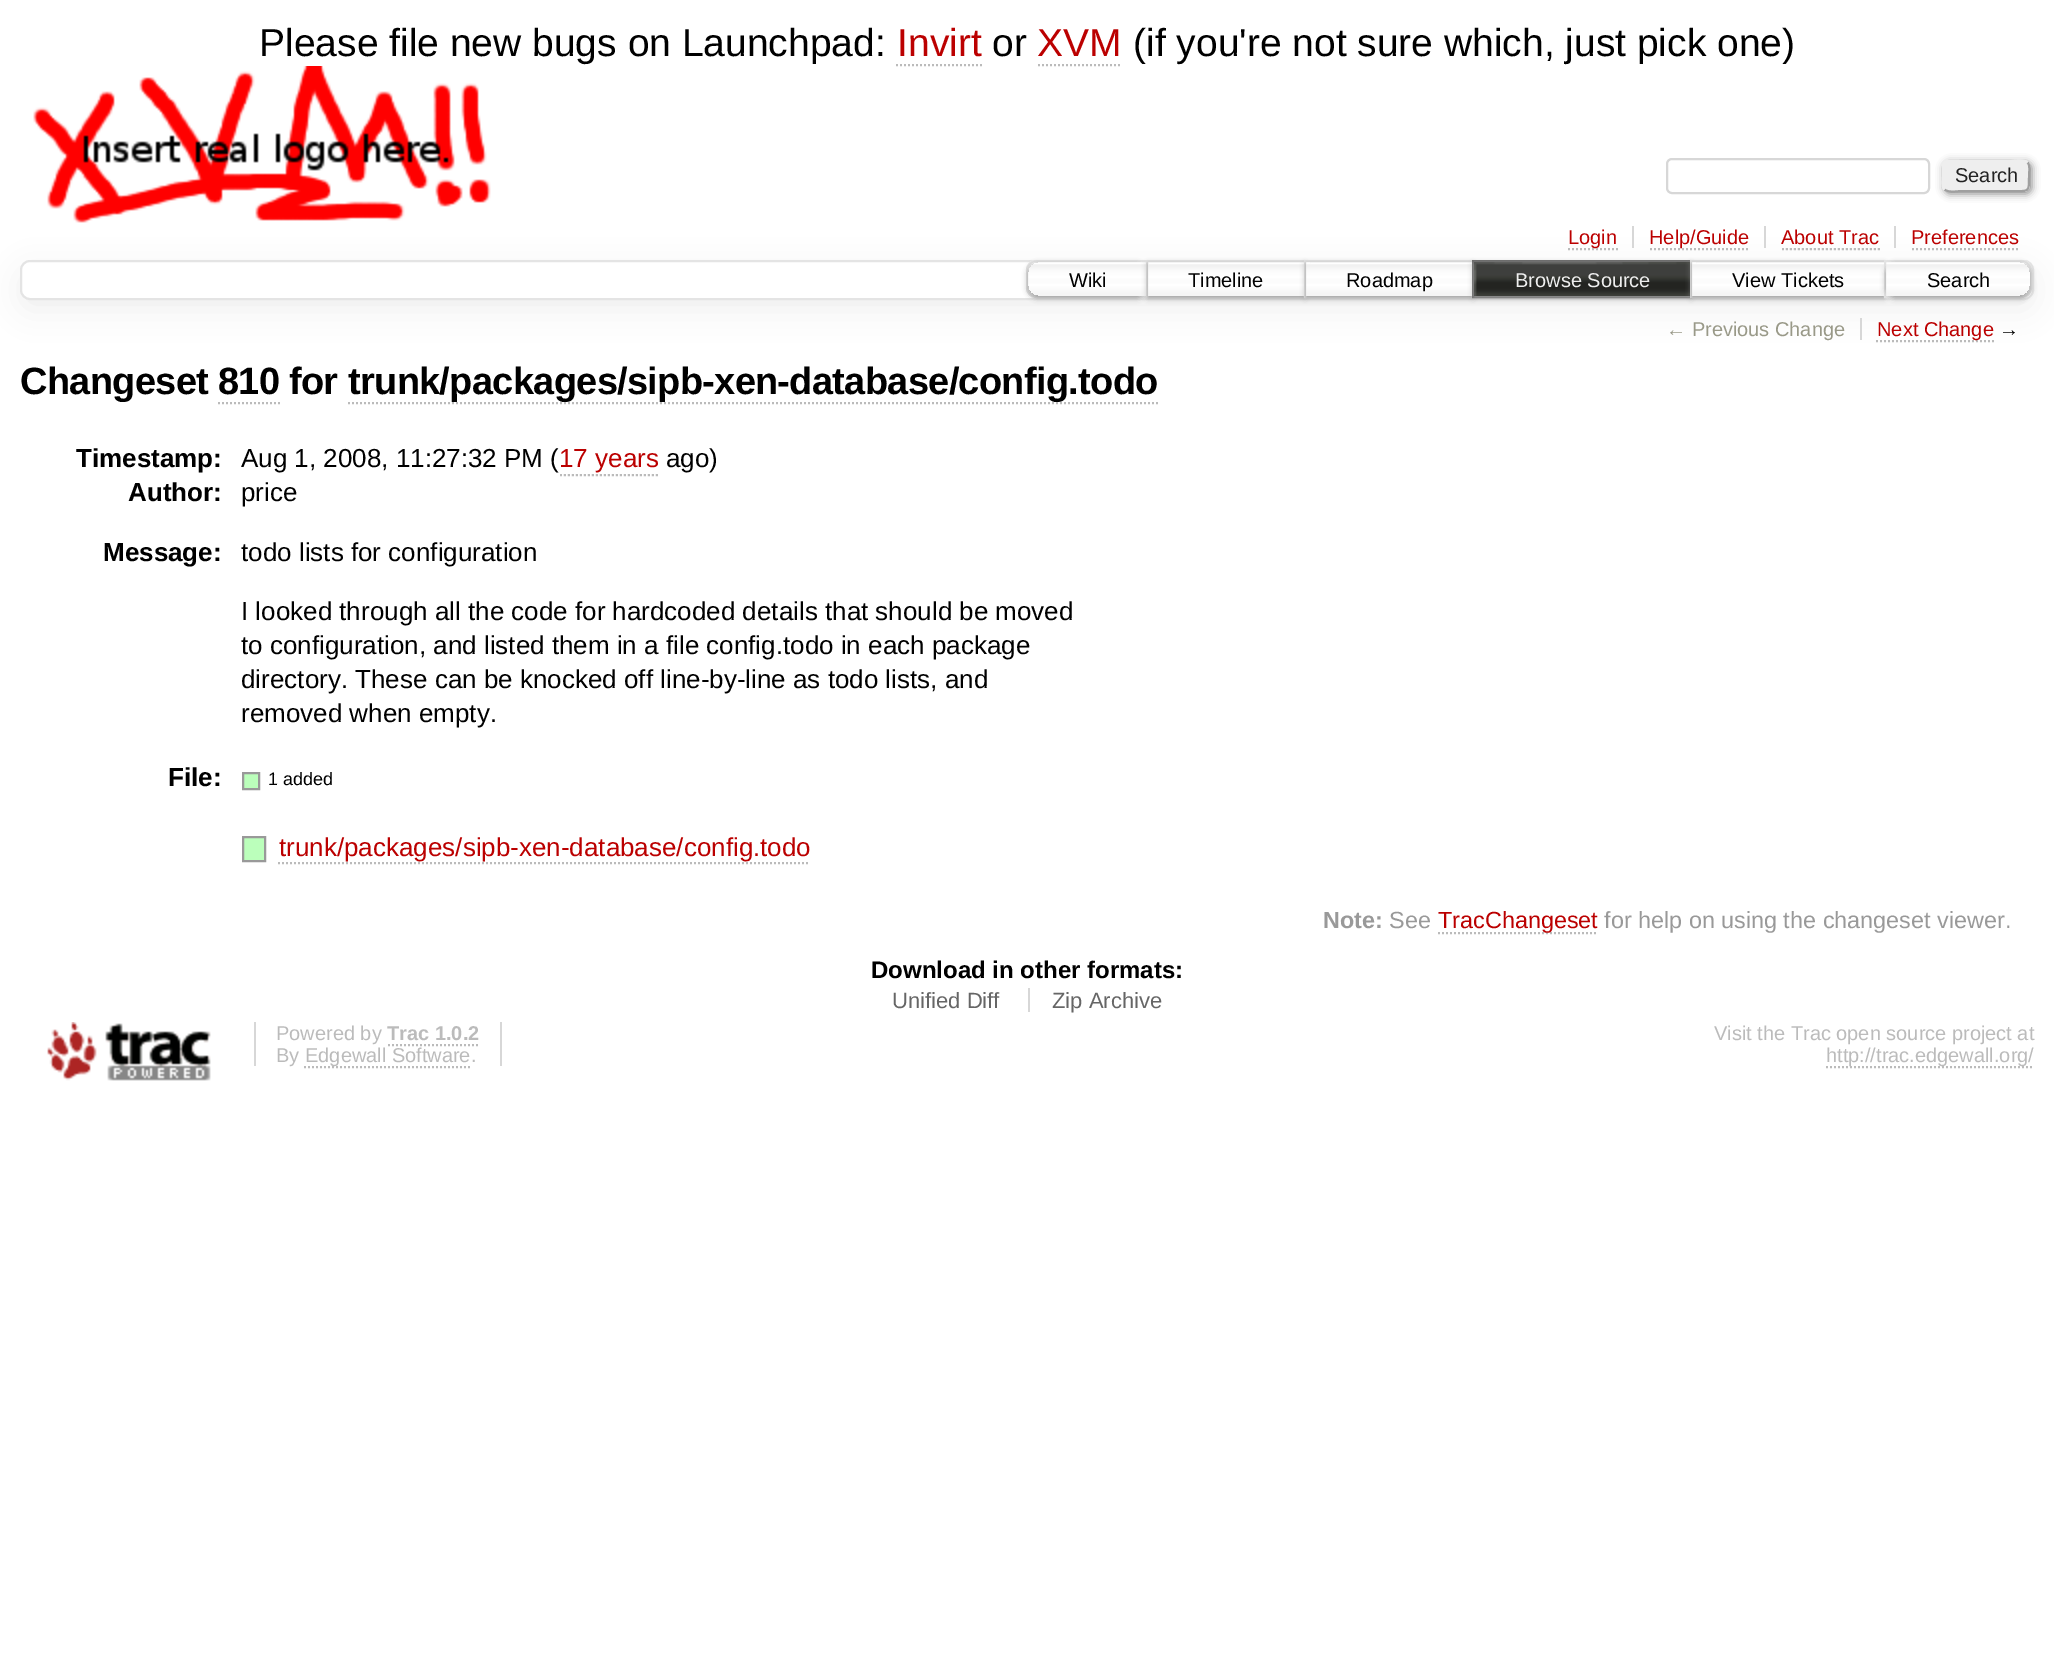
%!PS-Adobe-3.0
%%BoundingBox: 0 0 2054 1661
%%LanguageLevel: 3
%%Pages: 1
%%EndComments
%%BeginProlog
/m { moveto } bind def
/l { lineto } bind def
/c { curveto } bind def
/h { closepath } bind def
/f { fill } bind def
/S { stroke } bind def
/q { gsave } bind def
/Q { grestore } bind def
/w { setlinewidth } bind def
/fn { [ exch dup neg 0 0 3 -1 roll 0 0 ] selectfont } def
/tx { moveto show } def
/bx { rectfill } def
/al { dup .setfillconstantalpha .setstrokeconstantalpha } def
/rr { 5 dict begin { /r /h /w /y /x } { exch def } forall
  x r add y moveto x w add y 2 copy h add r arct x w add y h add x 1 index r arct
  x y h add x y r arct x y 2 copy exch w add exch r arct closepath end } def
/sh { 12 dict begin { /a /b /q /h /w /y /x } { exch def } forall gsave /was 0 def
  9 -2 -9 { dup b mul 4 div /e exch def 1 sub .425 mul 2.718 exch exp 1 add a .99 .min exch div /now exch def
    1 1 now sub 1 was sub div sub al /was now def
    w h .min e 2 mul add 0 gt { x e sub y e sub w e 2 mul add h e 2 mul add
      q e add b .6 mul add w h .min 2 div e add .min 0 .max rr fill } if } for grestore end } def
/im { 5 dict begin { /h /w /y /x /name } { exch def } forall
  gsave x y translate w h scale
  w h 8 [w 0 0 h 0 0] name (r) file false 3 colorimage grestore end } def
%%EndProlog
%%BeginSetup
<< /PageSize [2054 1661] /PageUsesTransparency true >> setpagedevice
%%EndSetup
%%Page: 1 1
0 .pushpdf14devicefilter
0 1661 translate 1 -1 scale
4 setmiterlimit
1 setgray
0 0 2054 1661 bx
/LiberationSans-Regular 39 fn
0 setgray
(Please file new bugs on Launchpad:) 259 56 tx
0.733 0 0 setrgbcolor
(Invirt) 897 56 tx
0.733 setgray
2 w
[2 2] 0 setdash
896 65 m 982 65 l S
0 setgray
(or) 992 56 tx
0.733 0 0 setrgbcolor
(XVM) 1037 56 tx
0.733 setgray
1038 65 m 1122 65 l S
0 setgray
(\(if you're not sure which, just pick one\)) 1133 56 tx
(image0.raw) 33 66 458 157 im
0.843 setgray
[] 0 setdash
1667 159 262 34 5 rr S
0.533 setgray
1944 162 88 32 6 4 1 sh
0.933 setgray
1942 160 88 32 6 rr f
0.624 setgray
2027.5 162.5 m 2030.5 165 2029 172.5 2029 176 c 2029 193 2029.5 191 2011.5 191 c 1960.5 191 l 1959.5 191 1948 193 1944.5 189.5 c S
0.933 setgray
1944.5 189.5 m 1941.5 187 1943 179.5 1943 176 c 1943 159 1942.5 161 1960.5 161 c 2011.5 161 l 2012.5 161 2024 159 2027.5 162.5 c S
/LiberationSans-Regular 20 fn
0.133 setgray
(Search) 1955 182 tx
q
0 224 m 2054 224 l 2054 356 l 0 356 l h 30 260 m 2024 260 l 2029.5 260 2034 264.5 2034 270 c 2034 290 l 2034 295.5 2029.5 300 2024 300 c 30 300 l 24.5 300 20 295.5 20 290 c 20 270 l 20 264.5 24.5 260 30 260 c h eoclip newpath
0.933 setgray
20 270 2014 40 10 15 1 sh
Q
0.843 setgray
1632 226 2 22 bx
0.733 setgray
[2 2] 0 setdash
1568 249 m 1618 249 l S
0.733 0 0 setrgbcolor
(Login) 1568 244 tx
0.843 setgray
1764 226 2 22 bx
0.733 setgray
1650 249 m 1750 249 l S
0.733 0 0 setrgbcolor
(Help/Guide) 1649 244 tx
0.843 setgray
1894 226 2 22 bx
0.733 0 0 setrgbcolor
(About Trac) 1781 244 tx
0.733 setgray
1782 249 m 1880 249 l S
0.733 0 0 setrgbcolor
(Preferences) 1911 244 tx
0.733 setgray
1912 249 m 2020 249 l S
0.894 setgray
[] 0 setdash
21 261 2012 38 9 rr S
1 setgray
1036 260 m 1148 260 l 1148 298 l 1036 298 l 1030.5 298 1026 293.5 1026 288 c 1026 270 l 1026 264.5 1030.5 260 1036 260 c h f
(image1.raw) 1026 264 120 34 im
0.894 setgray
1036 261 m 1147 261 l 1147 297 l 1036 297 l 1031 297 1027 293 1027 288 c 1027 270 l 1027 265 1031 261 1036 261 c h S
q
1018 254 m 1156 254 l 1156 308 l 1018 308 l h 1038 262 m 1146 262 l 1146 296 l 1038 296 l 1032.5 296 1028 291.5 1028 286 c 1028 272 l 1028 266.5 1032.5 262 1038 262 c h eoclip newpath
0.6 setgray
1028 264 118 34 10 3 1 sh
Q
0 setgray
(Wiki) 1069 287 tx
1 setgray
1148 265 4 31 bx
(image2.raw) 1148 264 156 32 im
0.894 setgray
1147 261 158 36 rectstroke
q
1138 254 m 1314 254 l 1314 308 l 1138 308 l h 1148 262 m 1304 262 l 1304 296 l 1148 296 l h eoclip newpath
0.6 setgray
1148 264 156 34 0 3 1 sh
Q
0 setgray
(Timeline) 1188 287 tx
1 setgray
1306 262 4 34 bx
(image3.raw) 1306 264 166 32 im
0.894 setgray
1305 261 168 36 rectstroke
q
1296 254 m 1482 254 l 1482 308 l 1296 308 l h 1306 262 m 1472 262 l 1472 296 l 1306 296 l h eoclip newpath
0.6 setgray
1306 264 166 34 0 3 1 sh
Q
0 setgray
(Roadmap) 1346 287 tx
0.4 setgray
1473 261 218 36 rectstroke
0.6 setgray
1474 264 216 34 0 3 1 sh
0 setgray
1474 262 216 34 bx
(image4.raw) 1474 262 216 34 im
0.933 setgray
(Browse Source) 1515 287 tx
1 setgray
1692 262 4 34 bx
(image5.raw) 1692 264 192 32 im
0.894 setgray
1691 261 194 36 rectstroke
q
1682 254 m 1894 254 l 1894 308 l 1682 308 l h 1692 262 m 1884 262 l 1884 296 l 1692 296 l h eoclip newpath
0.6 setgray
1692 264 192 34 0 3 1 sh
Q
0 setgray
(View Tickets) 1732 287 tx
1 setgray
1884 260 m 2022 260 l 2027.5 260 2032 264.5 2032 270 c 2032 288 l 2032 293.5 2027.5 298 2022 298 c 1884 298 l h f
(image6.raw) 1886 264 146 34 im
0.894 setgray
1885 261 m 2022 261 l 2027 261 2031 265 2031 270 c 2031 288 l 2031 293 2027 297 2022 297 c 1885 297 l h S
q
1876 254 m 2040 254 l 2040 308 l 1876 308 l h 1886 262 m 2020 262 l 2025.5 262 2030 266.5 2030 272 c 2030 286 l 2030 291.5 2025.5 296 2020 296 c 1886 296 l h eoclip newpath
0.6 setgray
1886 264 144 34 10 3 1 sh
Q
0 setgray
(Search) 1927 287 tx
0.843 setgray
1860 318 2 22 bx
0.6 0.6 0.533 setrgbcolor
(← Previous Change) 1666 336 tx
0.733 setgray
[2 2] 0 setdash
1876 341 m 1994 341 l S
0.733 0 0 setrgbcolor
(Next Change) 1877 336 tx
0 setgray
(→) 1999 336 tx
/LiberationSans-Bold 38 fn
20 394 m -0.7 0 (Changeset 810 for) ashow
0.733 setgray
348 403 m 1158 403 l S
0 setgray
348 394 m -0.7 0 (trunk/packages/sipb-xen-database/config.todo) ashow
0.733 setgray
218 403 m 280 403 l S
/LiberationSans-Bold 26 fn
0 setgray
(Timestamp:) 76 467 tx
/LiberationSans-Regular 26 fn
(Aug 1, 2008, 11:27:32 PM \() 241 467 tx
0.733 0 0 setrgbcolor
(17 years) 559 467 tx
0.733 setgray
560 475 m 658 475 l S
0 setgray
(ago\)) 666 467 tx
/LiberationSans-Bold 26 fn
(Author:) 128 501 tx
/LiberationSans-Regular 26 fn
(price) 241 501 tx
/LiberationSans-Bold 26 fn
(Message:) 103 561 tx
/LiberationSans-Regular 26 fn
(todo lists for configuration) 241 561 tx
(I looked through all the code for hardcoded details that should be moved) 241 620 tx
(to configuration, and listed them in a file config.todo in each package) 241 654 tx
(directory. These can be knocked off line-by-line as todo lists, and) 241 688 tx
(removed when empty.) 241 722 tx
/LiberationSans-Bold 26 fn
(File:) 168 786 tx
0.733 1 0.733 setrgbcolor
243 773 m 259 773 l 259 789 l 243 789 l h q f Q
0.6 setgray
[] 0 setdash
S
/LiberationSans-Regular 18 fn
0 setgray
(1 added) 268 785 tx
0.733 1 0.733 setrgbcolor
243 837 m 265 837 l 265 861 l 243 861 l h q f Q
0.6 setgray
S
/LiberationSans-Regular 26 fn
0.733 0 0 setrgbcolor
(trunk/packages/sipb-xen-database/config.todo) 279 856 tx
0.733 setgray
[2 2] 0 setdash
278 863 m 810 863 l S
/LiberationSans-Bold 23.4 fn
0.6 setgray
(Note:) 1323 928 tx
/LiberationSans-Regular 23.4 fn
(See) 1389 928 tx
0.733 setgray
1438 933 m 1598 933 l S
0.733 0 0 setrgbcolor
(TracChangeset) 1438 928 tx
0.6 setgray
(for help on using the changeset viewer.) 1604 928 tx
/LiberationSans-Bold 24 fn
0 setgray
(Download in other formats:) 871 978 tx
/LiberationSans-Regular 22 fn
0.4 setgray
(Unified Diff) 892 1008 tx
0.843 setgray
1028 988 2 24 bx
0.4 setgray
(Zip Archive) 1052 1008 tx
(image7.raw) 47 1022 164 59 im
0.843 setgray
500 1022 2 44 bx
254 1022 2 44 bx
/LiberationSans-Regular 20 fn
0.733 setgray
(Powered by) 276 1040 tx
/LiberationSans-Bold 20 fn
(Trac 1.0.2) 387 1040 tx
388 1045 m 480 1045 l S
/LiberationSans-Regular 20 fn
(By) 276 1062 tx
304 1067 m 470 1067 l S
(Edgewall Software.) 305 1062 tx
(Visit the Trac open source project at) 1714 1040 tx
1826 1067 m 2034 1067 l S
(http://trac.edgewall.org/) 1826 1062 tx
.poppdf14devicefilter showpage
%%EOF
